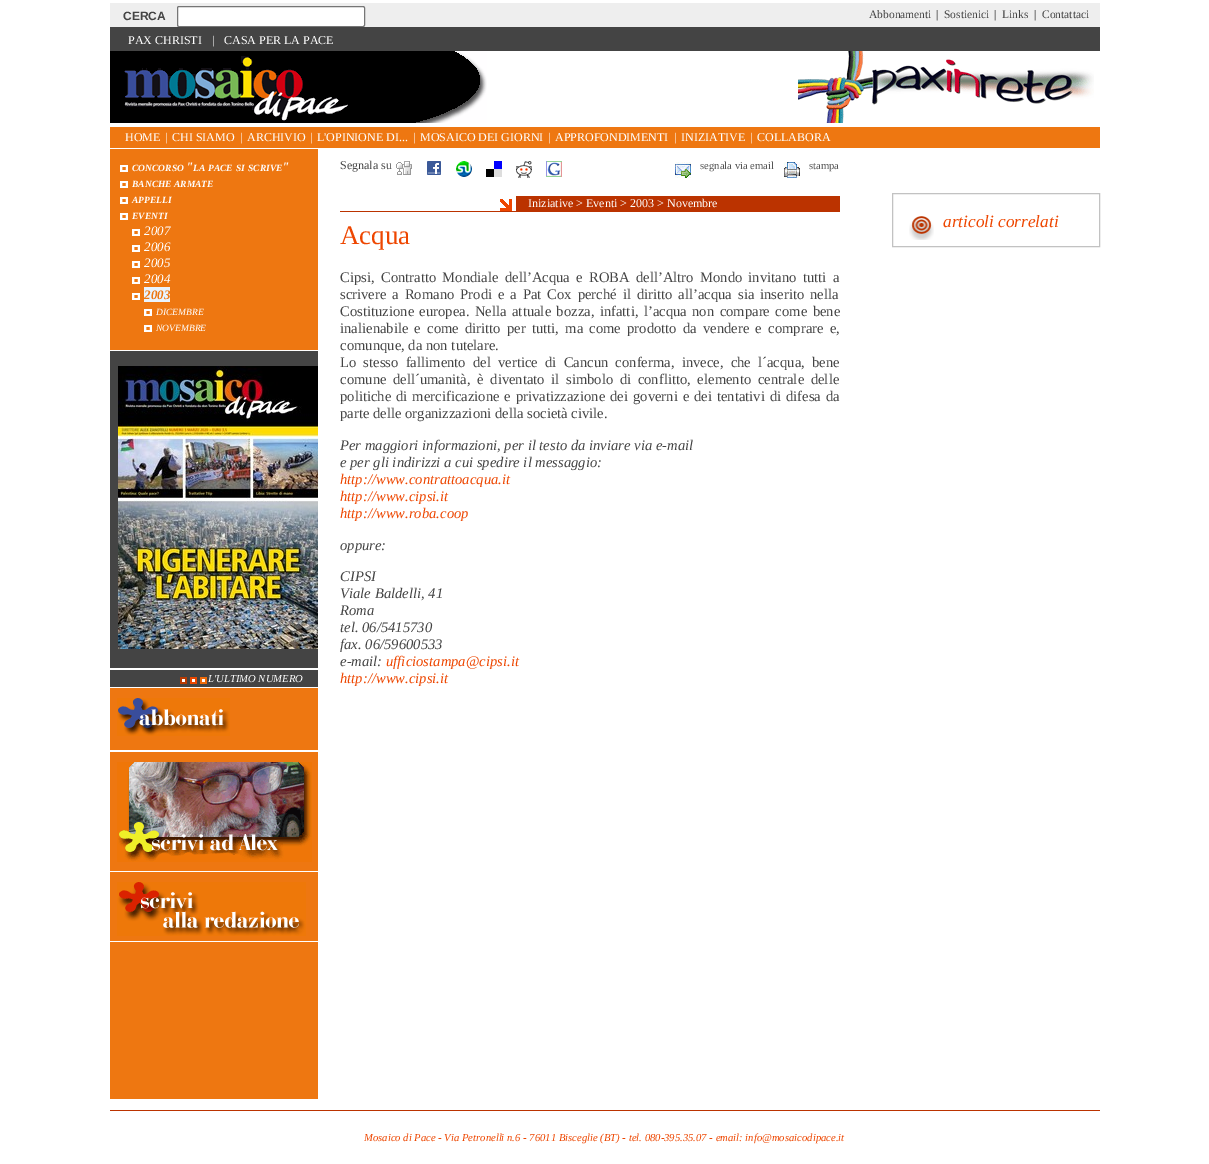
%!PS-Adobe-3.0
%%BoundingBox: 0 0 1209 1164
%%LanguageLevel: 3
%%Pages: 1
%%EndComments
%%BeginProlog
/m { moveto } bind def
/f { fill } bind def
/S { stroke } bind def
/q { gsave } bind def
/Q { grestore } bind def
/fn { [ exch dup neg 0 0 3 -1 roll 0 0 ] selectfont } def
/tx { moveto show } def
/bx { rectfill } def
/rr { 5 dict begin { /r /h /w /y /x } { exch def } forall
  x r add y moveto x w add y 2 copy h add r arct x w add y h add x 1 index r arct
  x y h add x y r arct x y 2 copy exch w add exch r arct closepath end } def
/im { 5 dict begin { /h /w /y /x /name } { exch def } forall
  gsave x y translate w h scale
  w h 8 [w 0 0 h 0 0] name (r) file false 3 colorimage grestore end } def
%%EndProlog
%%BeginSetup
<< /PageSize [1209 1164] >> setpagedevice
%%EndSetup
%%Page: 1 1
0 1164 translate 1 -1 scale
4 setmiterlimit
1 setgray
0 0 1209 1164 bx
0.933 setgray
110 3 990 24 bx
/LiberationSans-Bold 12 fn
0.267 setgray
(CERCA) 123 20 tx
1 setgray
177.5 6.5 187 20 1.5 rr q f Q
0.463 setgray
S
/LiberationSerif-Regular 11.5 fn
0.267 setgray
(Abbonamenti) 869 18 tx
(|) 936 18 tx
(Sostienici) 944 18 tx
(|) 994 18 tx
(Links) 1002 18 tx
(|) 1034 18 tx
(Contattaci) 1042 18 tx
110 27 990 24 bx
/LiberationSerif-Regular 12 fn
1 setgray
(PAX CHRISTI) 128 44 tx
(|) 212 44 tx
(CASA PER LA PACE) 224 44 tx
(image0.raw) 110 51 377 72 im
(image1.raw) 798 51 296 72 im
0.933 0.467 0.067 setrgbcolor
110 127 990 21 bx
1 setgray
(HOME) 125 141 tx
(|) 165 141 tx
(CHI SIAMO) 172 141 tx
(|) 240 141 tx
(ARCHIVIO) 247 141 tx
(|) 310 141 tx
(L'OPINIONE DI...) 317 141 tx
(|) 413 141 tx
(MOSAICO DEI GIORNI) 420 141 tx
(|) 548 141 tx
(APPROFONDIMENTI) 555 141 tx
(|) 674 141 tx
(INIZIATIVE) 681 141 tx
(|) 750 141 tx
(COLLABORA) 757 141 tx
0.933 0.467 0.067 setrgbcolor
110 149 208 950 bx
1 setgray
110 350 208 1 bx
(image2.raw) 120 165 8 7 im
/LiberationSerif-BoldItalic 9.5 fn
(CONCORSO) 132 171 tx
/LiberationSerif-BoldItalic 13 fn
(") 186 171 tx
/LiberationSerif-BoldItalic 9.5 fn
(LA) 193 171 tx
(PACE) 208 171 tx
(SI) 236 171 tx
(SCRIVE) 248 171 tx
/LiberationSerif-BoldItalic 13 fn
(") 282 171 tx
(image2.raw) 120 181 8 7 im
/LiberationSerif-BoldItalic 9.5 fn
(BANCHE) 132 187 tx
(ARMATE) 174 187 tx
(image2.raw) 120 197 8 7 im
(APPELLI) 132 203 tx
(image2.raw) 120 213 8 7 im
(EVENTI) 132 219 tx
(image2.raw) 132 229 8 7 im
/LiberationSerif-Italic 13 fn
(2007) 144 235 tx
(image2.raw) 132 245 8 7 im
(2006) 144 251 tx
(image2.raw) 132 261 8 7 im
(2005) 144 267 tx
(image2.raw) 132 277 8 7 im
(2004) 144 283 tx
(image2.raw) 132 293 8 7 im
0.914 0.957 1 setrgbcolor
144 287 26 15 bx
/LiberationSerif-BoldItalic 13 fn
0.933 0.467 0.067 setrgbcolor
(2003) 144 299 tx
(image2.raw) 144 309 8 7 im
/LiberationSerif-Italic 9.5 fn
1 setgray
(DICEMBRE) 156 315 tx
(image2.raw) 144 325 8 7 im
(NOVEMBRE) 156 331 tx
0.267 setgray
110 351 208 336 bx
(image3.raw) 118 366 200 283 im
(image4.raw) 180 677 27 7 im
1 setgray
110 668 208 2 bx
110 687 208 1 bx
/LiberationSerif-Italic 10.65 fn
(L'ULTIMO NUMERO) 208 682 tx
(image5.raw) 117 698 113 38 im
110 750 208 1 bx
110 751 209 1 bx
(image6.raw) 117 762 195 100 im
110 871 208 1 bx
(image7.raw) 117 882 189 54 im
110 941 208 1 bx
/LiberationSerif-Regular 12 fn
0.267 setgray
(Segnala su) 340 169 tx
(image8.raw) 396 161 16 14 im
(image9.raw) 427 161 14 14 im
(image10.raw) 456 161 16 16 im
(image11.raw) 486 161 16 16 im
(image12.raw) 516 161 16 17 im
(image13.raw) 546 161 16 16 im
(image14.raw) 675 162 16 16 im
/LiberationSerif-Regular 10.65 fn
0.333 setgray
(segnala via email) 700 169 tx
(image15.raw) 784 162 16 16 im
(stampa) 809 169 tx
(image16.raw) 500 199 12 12 im
0.733 0.2 0 setrgbcolor
340 211 500 1 bx
516 196 324 15 bx
/LiberationSerif-Regular 12 fn
1 setgray
(Iniziative > Eventi > 2003 > Novembre) 528 207 tx
/LiberationSerif-Regular 27 fn
0.933 0.275 0 setrgbcolor
(Acqua) 340 244 tx
/LiberationSerif-Regular 14.65 fn
0.267 setgray
340 282 m 2.6 0 32 (Cipsi, Contratto Mondiale dell’Acqua e ROBA dell’Altro Mondo invitano tutti a) widthshow
340 299 m 2.25 0 32 (scrivere a Romano Prodi e a Pat Cox perché il diritto all’acqua sia inserito nella) widthshow
340 316 m 1.75 0 32 (Costituzione europea. Nella attuale bozza, infatti, l’acqua non compare come bene) widthshow
340 333 m 2.5 0 32 (inalienabile e come diritto per tutti, ma come prodotto da vendere e comprare e,) widthshow
(comunque, da non tutelare.) 340 350 tx
340 367 m 3.5 0 32 (Lo stesso fallimento del vertice di Cancun conferma, invece, che l´acqua, bene) widthshow
340 384 m 2.9 0 32 (comune dell´umanità, è diventato il simbolo di conflitto, elemento centrale delle) widthshow
340 401 m 1.25 0 32 (politiche di mercificazione e privatizzazione dei governi e dei tentativi di difesa da) widthshow
(parte delle organizzazioni della società civile.) 340 418 tx
/LiberationSerif-Italic 14.65 fn
(Per maggiori informazioni, per il testo da inviare via e-mail) 340 450 tx
(e per gli indirizzi a cui spedire il messaggio:) 340 467 tx
0.933 0.275 0 setrgbcolor
(http://www.contrattoacqua.it) 340 484 tx
(http://www.cipsi.it) 340 501 tx
(http://www.roba.coop) 340 518 tx
0.267 setgray
(oppure:) 340 550 tx
(CIPSI) 340 581 tx
(Viale Baldelli, 41) 340 598 tx
(Roma) 340 615 tx
(tel. 06/5415730) 340 632 tx
(fax. 06/59600533) 340 649 tx
(e-mail:) 340 666 tx
0.933 0.275 0 setrgbcolor
(ufficiostampa@cipsi.it) 386 666 tx
(http://www.cipsi.it) 340 683 tx
0.761 setgray
892.5 193.5 207 53 rectstroke
(image17.raw) 909 216 25 24 im
/LiberationSerif-Italic 17.25 fn
0.933 0.275 0 setrgbcolor
(articoli correlati) 943 227 tx
0.733 0.2 0 setrgbcolor
110 1110 990 1 bx
/LiberationSerif-Italic 10.65 fn
0.933 0.275 0 setrgbcolor
(Mosaico di Pace - Via Petronelli n.6 - 76011 Bisceglie \(BT\) - tel. 080-395.35.07 - email: info@mosaicodipace.it) 364 1141 tx
showpage
%%EOF
